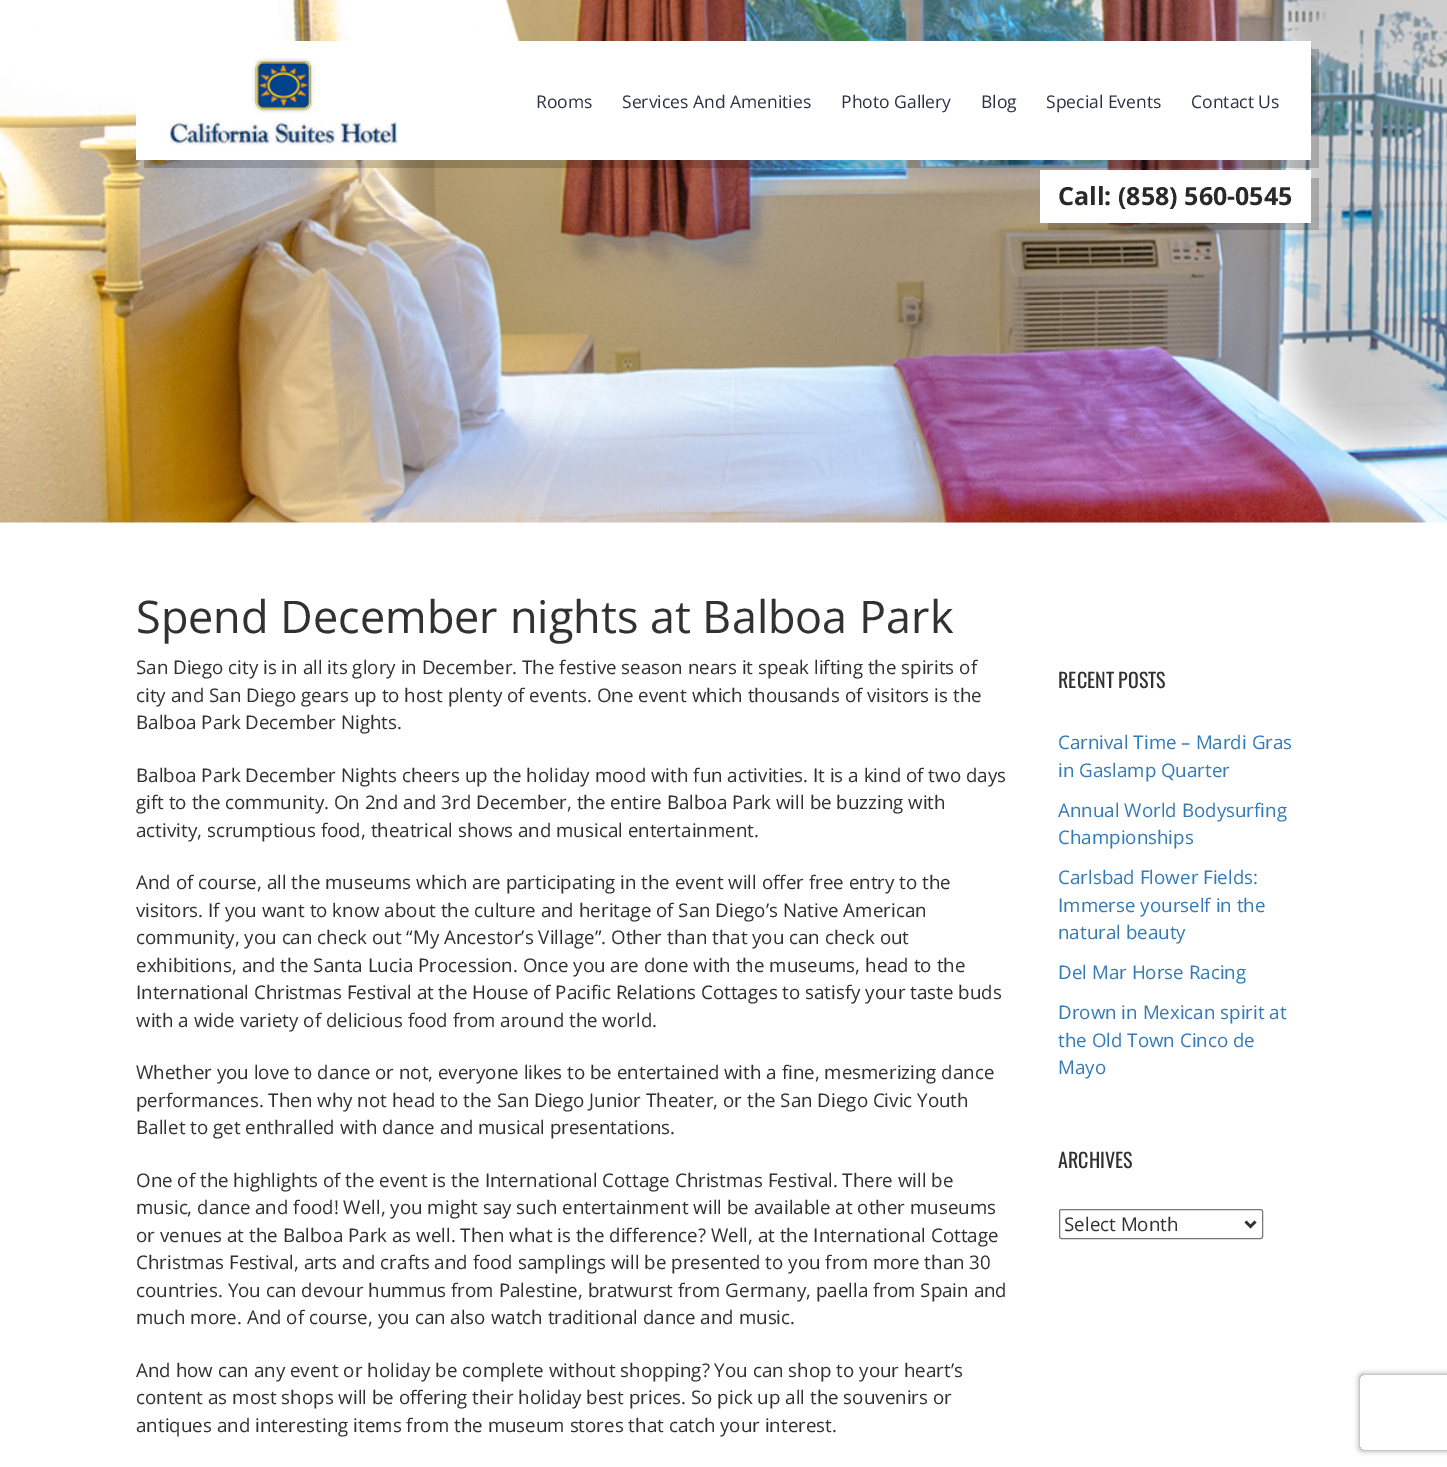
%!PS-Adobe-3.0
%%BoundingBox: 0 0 1447 1467
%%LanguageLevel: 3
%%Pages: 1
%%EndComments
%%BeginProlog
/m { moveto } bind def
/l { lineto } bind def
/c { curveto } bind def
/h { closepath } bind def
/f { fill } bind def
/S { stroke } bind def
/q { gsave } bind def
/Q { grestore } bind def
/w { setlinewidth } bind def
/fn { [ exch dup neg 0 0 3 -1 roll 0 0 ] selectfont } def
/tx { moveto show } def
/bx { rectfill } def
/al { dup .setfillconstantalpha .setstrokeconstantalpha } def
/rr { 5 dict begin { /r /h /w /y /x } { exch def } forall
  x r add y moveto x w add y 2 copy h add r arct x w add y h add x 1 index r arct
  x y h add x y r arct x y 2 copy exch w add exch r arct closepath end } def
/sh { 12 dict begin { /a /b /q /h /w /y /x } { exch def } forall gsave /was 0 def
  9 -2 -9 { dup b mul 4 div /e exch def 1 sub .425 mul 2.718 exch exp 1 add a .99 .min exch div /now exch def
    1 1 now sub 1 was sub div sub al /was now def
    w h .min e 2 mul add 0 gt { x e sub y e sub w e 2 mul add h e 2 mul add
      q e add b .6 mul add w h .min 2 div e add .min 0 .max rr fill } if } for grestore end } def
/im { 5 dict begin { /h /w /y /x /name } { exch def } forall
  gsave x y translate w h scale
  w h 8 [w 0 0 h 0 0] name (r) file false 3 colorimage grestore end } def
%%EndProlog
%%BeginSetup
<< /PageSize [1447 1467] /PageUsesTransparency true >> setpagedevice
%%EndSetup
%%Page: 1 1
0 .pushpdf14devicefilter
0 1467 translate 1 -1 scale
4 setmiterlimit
1 setgray
0 0 1447 1467 bx
(image0.raw) 0 0 1447 523 im
0.19 al
0 setgray
144 160 m 144 168 l 1319 168 l 1319 49 l 1311 49 l 1311 160 l h f
1 al
1 setgray
136 41 1175 119 bx
(image1.raw) 169 58 229 87 im
/OpenSans-Regular 17.5 fn
0.165 0.2 0.259 setrgbcolor
(Rooms) 536 108 tx
(Services And Amenities) 622 108 tx
(Photo Gallery) 841 108 tx
(Blog) 981 108 tx
(Special Events) 1046 108 tx
(Contact Us) 1191 108 tx
0.19 al
0 setgray
1048 222 m 1048 230 l 1319 230 l 1319 178 l 1311 178 l 1311 222 l h f
1 al
1 setgray
1040 170 271 53 bx
/OpenSans-Bold 25 fn
0.161 setgray
(Call: \(858\) 560-0545) 1058 205 tx
/OpenSans-Regular 45 fn
0.192 setgray
(Spend December nights at Balboa Park) 136 633 tx
/OpenSans-Regular 18.75 fn
(San Diego city is in all its glory in December. The festive season nears it speak lifting the spirits of) 136 674 tx
(city and San Diego gears up to host plenty of events. One event which thousands of visitors is the) 136 702 tx
(Balboa Park December Nights.) 136 729 tx
(Balboa Park December Nights cheers up the holiday mood with fun activities. It is a kind of two days) 136 782 tx
(gift to the community. On 2nd and 3rd December, the entire Balboa Park will be buzzing with) 136 809 tx
(activity, scrumptious food, theatrical shows and musical entertainment.) 136 837 tx
(And of course, all the museums which are participating in the event will offer free entry to the) 136 889 tx
(visitors. If you want to know about the culture and heritage of San Diego’s Native American) 136 917 tx
(community, you can check out “My Ancestor’s Village”. Other than that you can check out) 136 944 tx
(exhibitions, and the Santa Lucia Procession. Once you are done with the museums, head to the) 136 972 tx
(International Christmas Festival at the House of Pacific Relations Cottages to satisfy your taste buds) 136 999 tx
(with a wide variety of delicious food from around the world.) 136 1027 tx
(Whether you love to dance or not, everyone likes to be entertained with a fine, mesmerizing dance) 136 1079 tx
(performances. Then why not head to the San Diego Junior Theater, or the San Diego Civic Youth) 136 1107 tx
(Ballet to get enthralled with dance and musical presentations.) 136 1134 tx
(One of the highlights of the event is the International Cottage Christmas Festival. There will be) 136 1187 tx
(music, dance and food! Well, you might say such entertainment will be available at other museums) 136 1214 tx
(or venues at the Balboa Park as well. Then what is the difference? Well, at the International Cottage) 136 1242 tx
(Christmas Festival, arts and crafts and food samplings will be presented to you from more than 30) 136 1269 tx
(countries. You can devour hummus from Palestine, bratwurst from Germany, paella from Spain and) 136 1297 tx
(much more. And of course, you can also watch traditional dance and music.) 136 1324 tx
(And how can any event or holiday be complete without shopping? You can shop to your heart’s) 136 1377 tx
(content as most shops will be offering their holiday best prices. So pick up all the souvenirs or) 136 1404 tx
(antiques and interesting items from the museum stores that catch your interest.) 136 1432 tx
/Oswald-Regular 20 fn
(RECENT POSTS) 1058 688 tx
/OpenSans-Regular 18.75 fn
0.2 0.478 0.718 setrgbcolor
(Carnival Time – Mardi Gras) 1058 749 tx
(in Gaslamp Quarter) 1058 777 tx
(Annual World Bodysurfing) 1058 817 tx
(Championships) 1058 844 tx
(Carlsbad Flower Fields:) 1058 884 tx
(Immerse yourself in the) 1058 912 tx
(natural beauty) 1058 939 tx
(Del Mar Horse Racing) 1058 979 tx
(Drown in Mexican spirit at) 1058 1019 tx
(the Old Town Cinco de) 1058 1047 tx
(Mayo) 1058 1074 tx
/Oswald-Regular 20 fn
0.192 setgray
(ARCHIVES) 1058 1168 tx
0.463 setgray
1059.5 1209.5 203 29 2 rr S
0.192 setgray
2.5 w
1245.5 1221.5 m 1250.5 1226.5 l 1255.5 1221.5 l S
/OpenSans-Regular 18.75 fn
(Select Month) 1064 1231 tx
q
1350 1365 m 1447 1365 l 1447 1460 l 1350 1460 l h 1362.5 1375 m 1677.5 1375 l 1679 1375 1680 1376 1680 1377.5 c 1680 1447.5 l 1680 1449 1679 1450 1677.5 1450 c 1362.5 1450 l 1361 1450 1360 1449 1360 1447.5 c 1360 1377.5 l 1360 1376 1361 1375 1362.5 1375 c h eoclip newpath
0.502 setgray
1360 1375 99 75 2.5 3 1 sh
Q
.poppdf14devicefilter showpage
%%EOF
